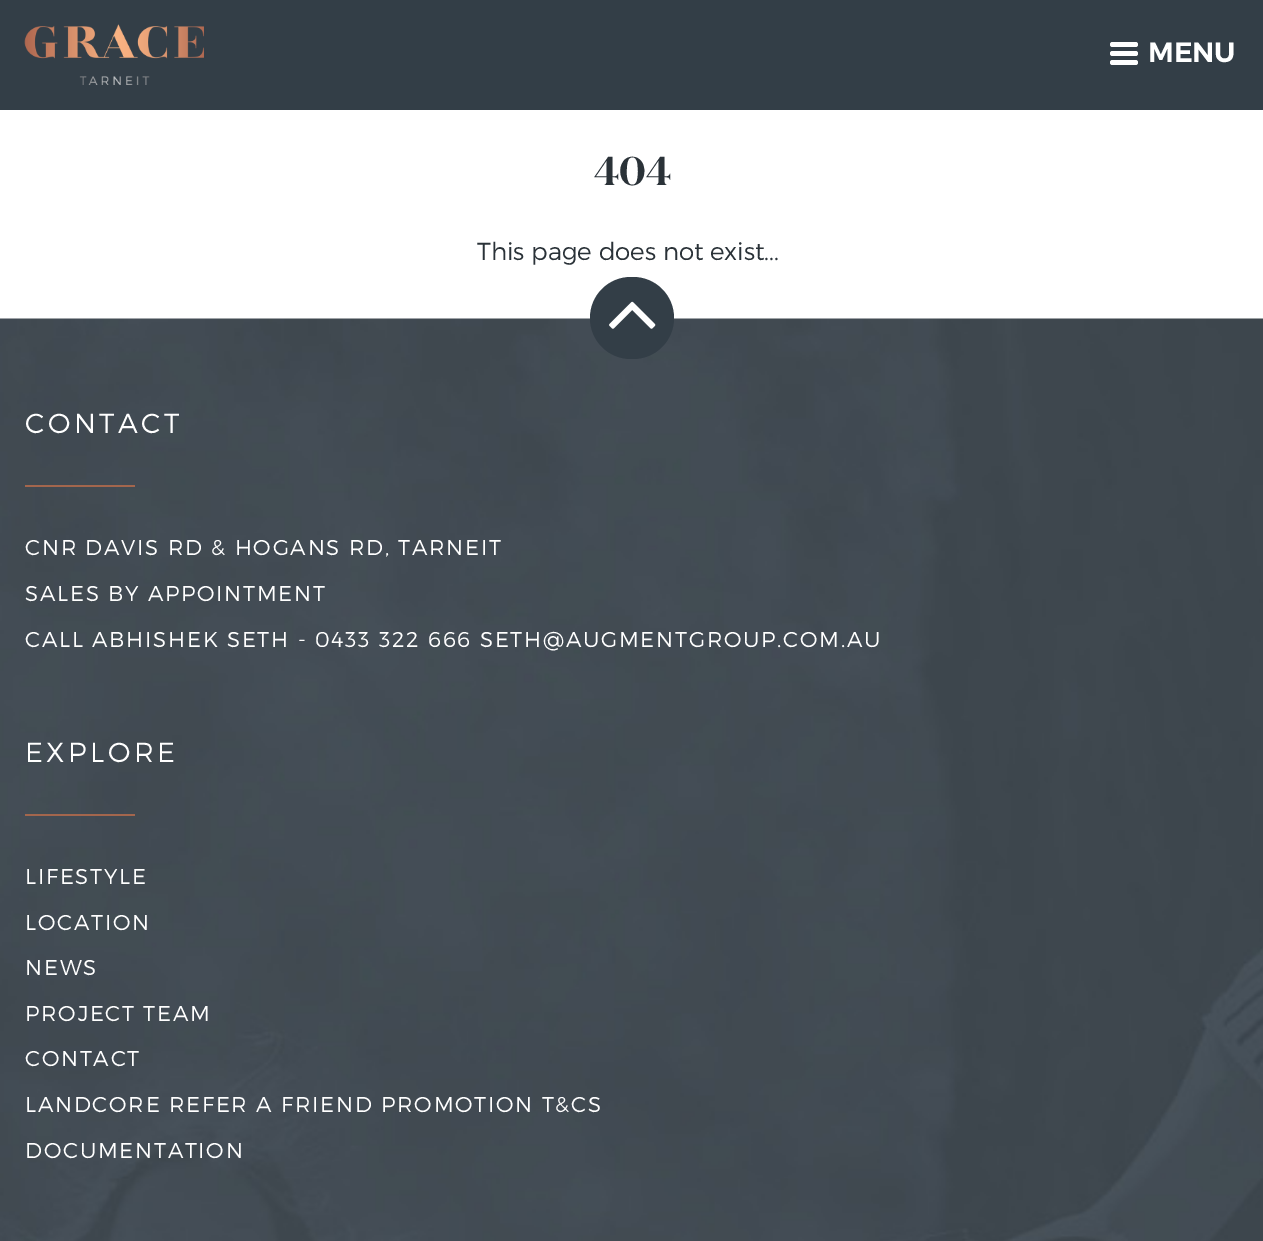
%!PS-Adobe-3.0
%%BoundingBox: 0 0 1263 1241
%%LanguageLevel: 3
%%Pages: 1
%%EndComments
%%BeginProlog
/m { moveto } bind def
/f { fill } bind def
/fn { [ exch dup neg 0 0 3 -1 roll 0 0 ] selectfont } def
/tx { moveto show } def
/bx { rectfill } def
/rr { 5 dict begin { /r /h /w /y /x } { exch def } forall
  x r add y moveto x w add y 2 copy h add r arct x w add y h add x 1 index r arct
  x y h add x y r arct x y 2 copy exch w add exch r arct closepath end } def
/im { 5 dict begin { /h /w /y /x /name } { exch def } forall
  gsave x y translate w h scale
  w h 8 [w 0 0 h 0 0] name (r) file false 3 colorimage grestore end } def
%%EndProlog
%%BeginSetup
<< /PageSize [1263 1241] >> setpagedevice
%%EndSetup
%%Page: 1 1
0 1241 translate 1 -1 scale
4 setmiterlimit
1 setgray
0 0 1263 1241 bx
0.2 0.243 0.278 setrgbcolor
0 0 1263 110 bx
(image0.raw) 24 24 180 61 im
1 setgray
1110 42 28 5 2.5 rr f
1110 51 28 5 2.5 rr f
1110 60 28 5 2.5 rr f
/Montserrat-SemiBold 28 fn
(MENU) 1148 62 tx
/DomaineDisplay-SemiBold 40 fn
0.165 0.196 0.22 setrgbcolor
(404) 594 185 tx
/Montserrat-Light 24.5 fn
(This page does not exist...) 477 260 tx
(image1.raw) 0 318 1263 923 im
0.2 0.243 0.278 setrgbcolor
590 277 84 82 41 rr f
(image2.raw) 609 301 47 28 im
/Montserrat-Light 27.5 fn
1 setgray
25 433 m 3.5 0 (CONTACT) ashow
0.639 0.4 0.302 setrgbcolor
25 485 110 2 bx
/Montserrat-Light 21.45 fn
1 setgray
25 555 m 1.75 0 (CNR DAVIS RD & HOGANS RD, TARNEIT) ashow
25 601 m 1.75 0 (SALES BY APPOINTMENT) ashow
25 647 m 1.75 0 (CALL ABHISHEK SETH - 0433 322 666 SETH@AUGMENTGROUP.COM.AU) ashow
/Montserrat-Light 27.5 fn
25 762 m 3.5 0 (EXPLORE) ashow
0.639 0.4 0.302 setrgbcolor
25 814 110 2 bx
/Montserrat-Light 21.45 fn
1 setgray
25 884 m 1.75 0 (LIFESTYLE) ashow
25 930 m 1.75 0 (LOCATION) ashow
25 975 m 1.75 0 (NEWS) ashow
25 1021 m 1.75 0 (PROJECT TEAM) ashow
25 1066 m 1.75 0 (CONTACT) ashow
25 1112 m 1.75 0 (LANDCORE REFER A FRIEND PROMOTION T&CS) ashow
25 1158 m 1.75 0 (DOCUMENTATION) ashow
showpage
%%EOF
